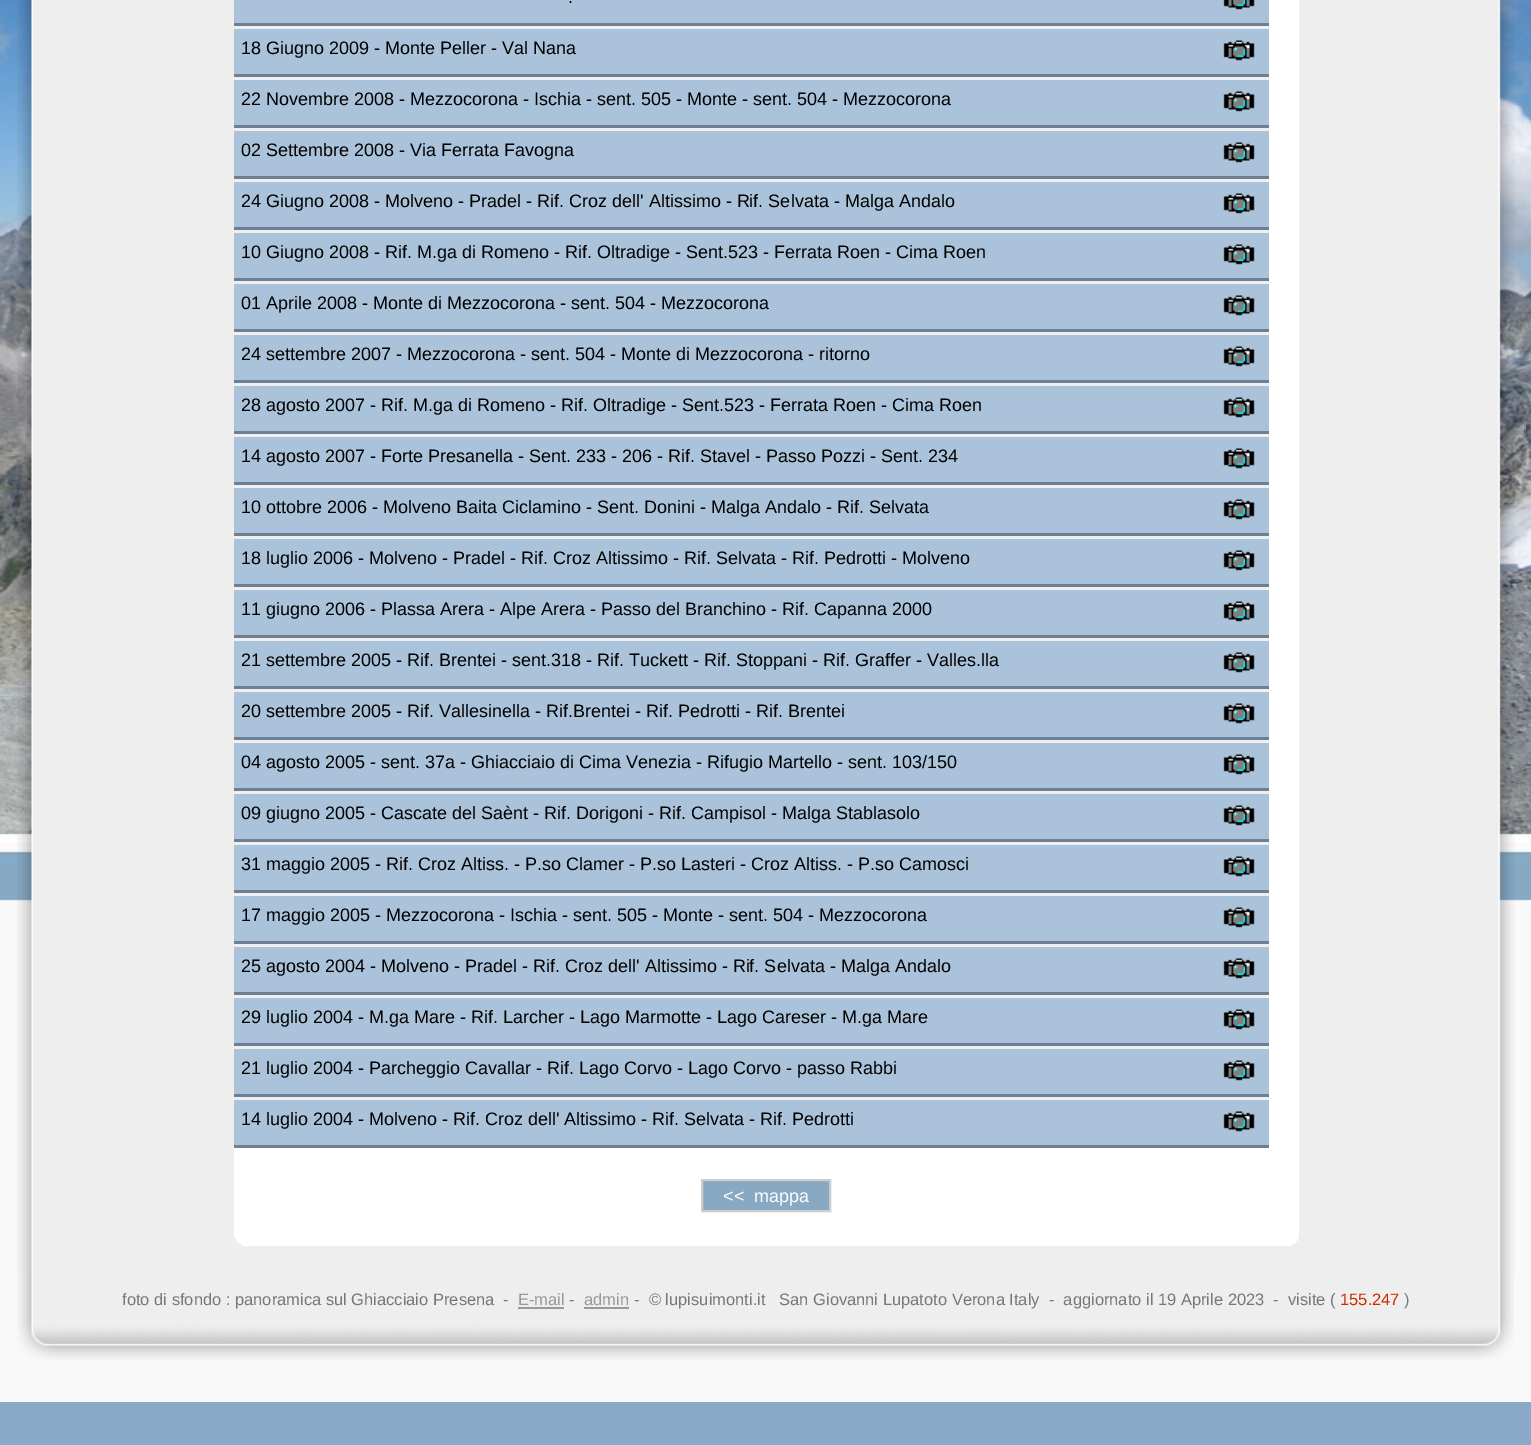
%!PS-Adobe-3.0
%%BoundingBox: 0 0 1531 1445
%%LanguageLevel: 3
%%Pages: 1
%%EndComments
%%BeginProlog
/m { moveto } bind def
/l { lineto } bind def
/h { closepath } bind def
/f { fill } bind def
/S { stroke } bind def
/q { gsave } bind def
/Q { grestore } bind def
/w { setlinewidth } bind def
/fn { [ exch dup neg 0 0 3 -1 roll 0 0 ] selectfont } def
/tx { moveto show } def
/bx { rectfill } def
/im { 5 dict begin { /h /w /y /x /name } { exch def } forall
  gsave x y translate w h scale
  w h 8 [w 0 0 h 0 0] name (r) file false 3 colorimage grestore end } def
%%EndProlog
%%BeginSetup
<< /PageSize [1531 1445] >> setpagedevice
%%EndSetup
%%Page: 1 1
0 1445 translate 1 -1 scale
4 setmiterlimit
0.976 setgray
0 0 1531 1445 bx
(image0.raw) 0 0 1531 901 im
(image1.raw) 17 0 1498 1275 im
1 setgray
234 0 1065 1238 bx
0.667 0.765 0.855 setrgbcolor
234 0 1035 23 bx
0.435 0.498 0.569 setrgbcolor
234 23 1035 3 bx
/LiberationSans-Regular 18 fn
0 setgray
(.) 568 3 tx
(image2.raw) 1223 0 32 10 im
0.667 0.765 0.855 setrgbcolor
234 29 1035 45 bx
0.937 setgray
234 26 1035 3 bx
0.435 0.498 0.569 setrgbcolor
234 74 1035 3 bx
0 setgray
(18 Giugno 2009 - Monte Peller - Val Nana) 241 54 tx
(image3.raw) 1223 40 32 21 im
0.667 0.765 0.855 setrgbcolor
234 80 1035 45 bx
0.937 setgray
234 77 1035 3 bx
0.435 0.498 0.569 setrgbcolor
234 125 1035 3 bx
0 setgray
(22 Novembre 2008 - Mezzocorona - Ischia - sent. 505 - Monte - sent. 504 - Mezzocorona) 241 105 tx
(image3.raw) 1223 91 32 21 im
0.667 0.765 0.855 setrgbcolor
234 131 1035 45 bx
0.937 setgray
234 128 1035 3 bx
0.435 0.498 0.569 setrgbcolor
234 176 1035 3 bx
0 setgray
(02 Settembre 2008 - Via Ferrata Favogna) 241 156 tx
(image3.raw) 1223 142 32 21 im
0.667 0.765 0.855 setrgbcolor
234 182 1035 45 bx
0.937 setgray
234 179 1035 3 bx
0.435 0.498 0.569 setrgbcolor
234 227 1035 3 bx
0 setgray
(24 Giugno 2008 - Molveno - Pradel - Rif. Croz dell' Altissimo - Rif. Selvata - Malga Andalo) 241 207 tx
(image3.raw) 1223 193 32 21 im
0.667 0.765 0.855 setrgbcolor
234 233 1035 45 bx
0.937 setgray
234 230 1035 3 bx
0.435 0.498 0.569 setrgbcolor
234 278 1035 3 bx
0 setgray
(10 Giugno 2008 - Rif. M.ga di Romeno - Rif. Oltradige - Sent.523 - Ferrata Roen - Cima Roen) 241 258 tx
(image3.raw) 1223 244 32 21 im
0.667 0.765 0.855 setrgbcolor
234 284 1035 45 bx
0.937 setgray
234 281 1035 3 bx
0.435 0.498 0.569 setrgbcolor
234 329 1035 3 bx
0 setgray
(01 Aprile 2008 - Monte di Mezzocorona - sent. 504 - Mezzocorona) 241 309 tx
(image3.raw) 1223 295 32 21 im
0.667 0.765 0.855 setrgbcolor
234 335 1035 45 bx
0.937 setgray
234 332 1035 3 bx
0.435 0.498 0.569 setrgbcolor
234 380 1035 3 bx
0 setgray
(24 settembre 2007 - Mezzocorona - sent. 504 - Monte di Mezzocorona - ritorno) 241 360 tx
(image3.raw) 1223 346 32 21 im
0.667 0.765 0.855 setrgbcolor
234 386 1035 45 bx
0.937 setgray
234 383 1035 3 bx
0.435 0.498 0.569 setrgbcolor
234 431 1035 3 bx
0 setgray
(28 agosto 2007 - Rif. M.ga di Romeno - Rif. Oltradige - Sent.523 - Ferrata Roen - Cima Roen) 241 411 tx
(image3.raw) 1223 397 32 21 im
0.667 0.765 0.855 setrgbcolor
234 437 1035 45 bx
0.937 setgray
234 434 1035 3 bx
0.435 0.498 0.569 setrgbcolor
234 482 1035 3 bx
0 setgray
(14 agosto 2007 - Forte Presanella - Sent. 233 - 206 - Rif. Stavel - Passo Pozzi - Sent. 234) 241 462 tx
(image3.raw) 1223 448 32 21 im
0.667 0.765 0.855 setrgbcolor
234 488 1035 45 bx
0.937 setgray
234 485 1035 3 bx
0.435 0.498 0.569 setrgbcolor
234 533 1035 3 bx
0 setgray
(10 ottobre 2006 - Molveno Baita Ciclamino - Sent. Donini - Malga Andalo - Rif. Selvata) 241 513 tx
(image3.raw) 1223 499 32 21 im
0.667 0.765 0.855 setrgbcolor
234 539 1035 45 bx
0.937 setgray
234 536 1035 3 bx
0.435 0.498 0.569 setrgbcolor
234 584 1035 3 bx
0 setgray
(18 luglio 2006 - Molveno - Pradel - Rif. Croz Altissimo - Rif. Selvata - Rif. Pedrotti - Molveno) 241 564 tx
(image3.raw) 1223 550 32 21 im
0.667 0.765 0.855 setrgbcolor
234 590 1035 45 bx
0.937 setgray
234 587 1035 3 bx
0.435 0.498 0.569 setrgbcolor
234 635 1035 3 bx
0 setgray
(11 giugno 2006 - Plassa Arera - Alpe Arera - Passo del Branchino - Rif. Capanna 2000) 241 615 tx
(image3.raw) 1223 601 32 21 im
0.667 0.765 0.855 setrgbcolor
234 641 1035 45 bx
0.937 setgray
234 638 1035 3 bx
0.435 0.498 0.569 setrgbcolor
234 686 1035 3 bx
0 setgray
(21 settembre 2005 - Rif. Brentei - sent.318 - Rif. Tuckett - Rif. Stoppani - Rif. Graffer - Valles.lla) 241 666 tx
(image3.raw) 1223 652 32 21 im
0.667 0.765 0.855 setrgbcolor
234 692 1035 45 bx
0.937 setgray
234 689 1035 3 bx
0.435 0.498 0.569 setrgbcolor
234 737 1035 3 bx
0 setgray
(20 settembre 2005 - Rif. Vallesinella - Rif.Brentei - Rif. Pedrotti - Rif. Brentei) 241 717 tx
(image3.raw) 1223 703 32 21 im
0.667 0.765 0.855 setrgbcolor
234 743 1035 45 bx
0.937 setgray
234 740 1035 3 bx
0.435 0.498 0.569 setrgbcolor
234 788 1035 3 bx
0 setgray
(04 agosto 2005 - sent. 37a - Ghiacciaio di Cima Venezia - Rifugio Martello - sent. 103/150) 241 768 tx
(image3.raw) 1223 754 32 21 im
0.667 0.765 0.855 setrgbcolor
234 794 1035 45 bx
0.937 setgray
234 791 1035 3 bx
0.435 0.498 0.569 setrgbcolor
234 839 1035 3 bx
0 setgray
(09 giugno 2005 - Cascate del Saènt - Rif. Dorigoni - Rif. Campisol - Malga Stablasolo) 241 819 tx
(image3.raw) 1223 805 32 21 im
0.667 0.765 0.855 setrgbcolor
234 845 1035 45 bx
0.937 setgray
234 842 1035 3 bx
0.435 0.498 0.569 setrgbcolor
234 890 1035 3 bx
0 setgray
(31 maggio 2005 - Rif. Croz Altiss. - P.so Clamer - P.so Lasteri - Croz Altiss. - P.so Camosci) 241 870 tx
(image3.raw) 1223 856 32 21 im
0.667 0.765 0.855 setrgbcolor
234 896 1035 45 bx
0.937 setgray
234 893 1035 3 bx
0.435 0.498 0.569 setrgbcolor
234 941 1035 3 bx
0 setgray
(17 maggio 2005 - Mezzocorona - Ischia - sent. 505 - Monte - sent. 504 - Mezzocorona) 241 921 tx
(image3.raw) 1223 907 32 21 im
0.667 0.765 0.855 setrgbcolor
234 947 1035 45 bx
0.937 setgray
234 944 1035 3 bx
0.435 0.498 0.569 setrgbcolor
234 992 1035 3 bx
0 setgray
(25 agosto 2004 - Molveno - Pradel - Rif. Croz dell' Altissimo - Rif. Selvata - Malga Andalo) 241 972 tx
(image3.raw) 1223 958 32 21 im
0.667 0.765 0.855 setrgbcolor
234 998 1035 45 bx
0.937 setgray
234 995 1035 3 bx
0.435 0.498 0.569 setrgbcolor
234 1043 1035 3 bx
0 setgray
(29 luglio 2004 - M.ga Mare - Rif. Larcher - Lago Marmotte - Lago Careser - M.ga Mare) 241 1023 tx
(image3.raw) 1223 1009 32 21 im
0.667 0.765 0.855 setrgbcolor
234 1049 1035 45 bx
0.937 setgray
234 1046 1035 3 bx
0.435 0.498 0.569 setrgbcolor
234 1094 1035 3 bx
0 setgray
(21 luglio 2004 - Parcheggio Cavallar - Rif. Lago Corvo - Lago Corvo - passo Rabbi) 241 1074 tx
(image3.raw) 1223 1060 32 21 im
0.667 0.765 0.855 setrgbcolor
234 1100 1035 45 bx
0.937 setgray
234 1097 1035 3 bx
0.435 0.498 0.569 setrgbcolor
234 1145 1035 3 bx
0 setgray
(14 luglio 2004 - Molveno - Rif. Croz dell' Altissimo - Rif. Selvata - Rif. Pedrotti) 241 1125 tx
(image3.raw) 1223 1111 32 21 im
0.529 0.663 0.769 setrgbcolor
702 1180 m 830 1180 l 830 1211 l 702 1211 l h q f Q
0.8 setgray
2 w
S
1 setgray
(<<  mappa) 723 1202 tx
236 1238 1062 3 bx
237 1241 1059 2 bx
239 1243 1056 1 bx
242 1244 1050 2 bx
(image4.raw) 17 1275 1497 85 im
/LiberationSans-Regular 16.5 fn
0.467 setgray
(foto di sfondo : panoramica sul Ghiacciaio Presena  -) 122 1305 tx
0.6 setgray
(E-mail) 518 1305 tx
518 1307 46 2 bx
0.467 setgray
(-) 569 1305 tx
0.6 setgray
(admin) 584 1305 tx
584 1307 45 2 bx
0.467 setgray
(-  © lupisuimonti.it   San Giovanni Lupatoto Verona Italy  -  aggiornato il 19 Aprile 2023  -  visite \() 634 1305 tx
0.804 0.169 0 setrgbcolor
(155.247) 1340 1305 tx
0.467 setgray
(\)) 1404 1305 tx
0.537 0.663 0.776 setrgbcolor
0 1402 1531 43 bx
showpage
%%EOF
